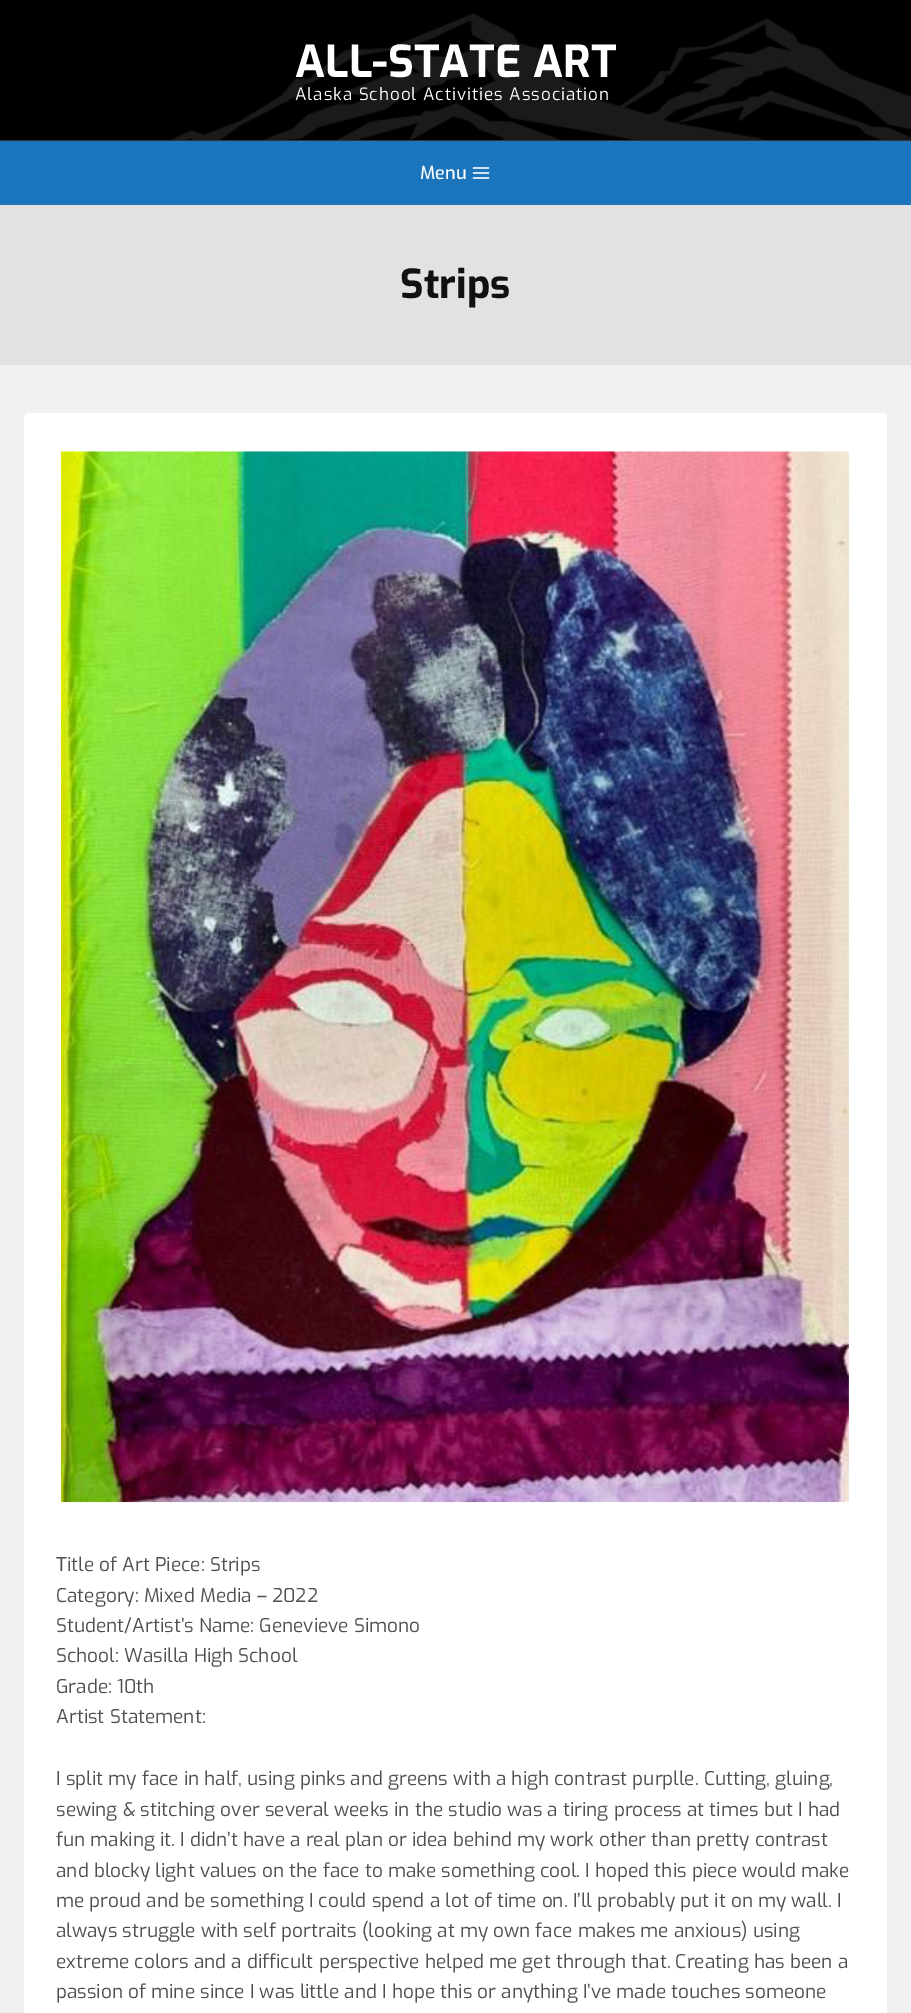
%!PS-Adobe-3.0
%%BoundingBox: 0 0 911 2013
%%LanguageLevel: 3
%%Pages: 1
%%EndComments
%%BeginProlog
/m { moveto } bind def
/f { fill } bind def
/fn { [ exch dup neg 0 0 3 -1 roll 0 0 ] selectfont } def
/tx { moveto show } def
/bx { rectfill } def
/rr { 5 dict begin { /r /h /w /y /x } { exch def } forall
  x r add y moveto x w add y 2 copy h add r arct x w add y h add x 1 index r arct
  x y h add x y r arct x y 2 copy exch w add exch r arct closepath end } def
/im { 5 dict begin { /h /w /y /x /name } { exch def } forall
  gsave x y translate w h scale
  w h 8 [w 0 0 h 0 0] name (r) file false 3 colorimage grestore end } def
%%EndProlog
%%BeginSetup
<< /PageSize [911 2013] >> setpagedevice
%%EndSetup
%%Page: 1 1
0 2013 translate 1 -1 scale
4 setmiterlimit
0.945 setgray
0 0 911 2013 bx
0 setgray
0 0 911 140 bx
(image0.raw) 169 13 742 127 im
0.2 setgray
0 140 911 1 bx
/Exo-Bold 44 fn
1 setgray
(ALL-STATE ART) 295 77 tx
/Exo-Regular 17 fn
295 100 m 1 0 (Alaska School Activities Association) ashow
0.106 0.459 0.737 setrgbcolor
0 141 911 64 bx
/Exo-Medium 18 fn
1 setgray
(Menu) 420 179 tx
(image1.raw) 472 167 18 12 im
0.886 setgray
0 205 911 160 bx
/Exo-Bold 40 fn
0.067 setgray
(Strips) 400 298 tx
1 setgray
24 413 863 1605 5 rr f
(image2.raw) 60 451 789 1052 im
/Exo-Regular 19 fn
0.31 setgray
(Title of Art Piece: Strips) 56 1571 tx
(Category: Mixed Media – 2022) 56 1602 tx
(Student/Artist’s Name: Genevieve Simono) 56 1632 tx
(School: Wasilla High School) 56 1662 tx
(Grade: 10th) 56 1693 tx
(Artist Statement:) 56 1723 tx
(I split my face in half, using pinks and greens with a high contrast purplle. Cutting, gluing,) 56 1785 tx
(sewing & stitching over several weeks in the studio was a tiring process at times but I had) 56 1816 tx
(fun making it. I didn’t have a real plan or idea behind my work other than pretty contrast) 56 1846 tx
(and blocky light values on the face to make something cool. I hoped this piece would make) 56 1877 tx
(me proud and be something I could spend a lot of time on. I’ll probably put it on my wall. I) 56 1907 tx
(always struggle with self portraits \(looking at my own face makes me anxious\) using) 56 1937 tx
(extreme colors and a difficult perspective helped me get through that. Creating has been a) 56 1968 tx
(passion of mine since I was little and I hope this or anything I’ve made touches someone) 56 1998 tx
showpage
%%EOF
